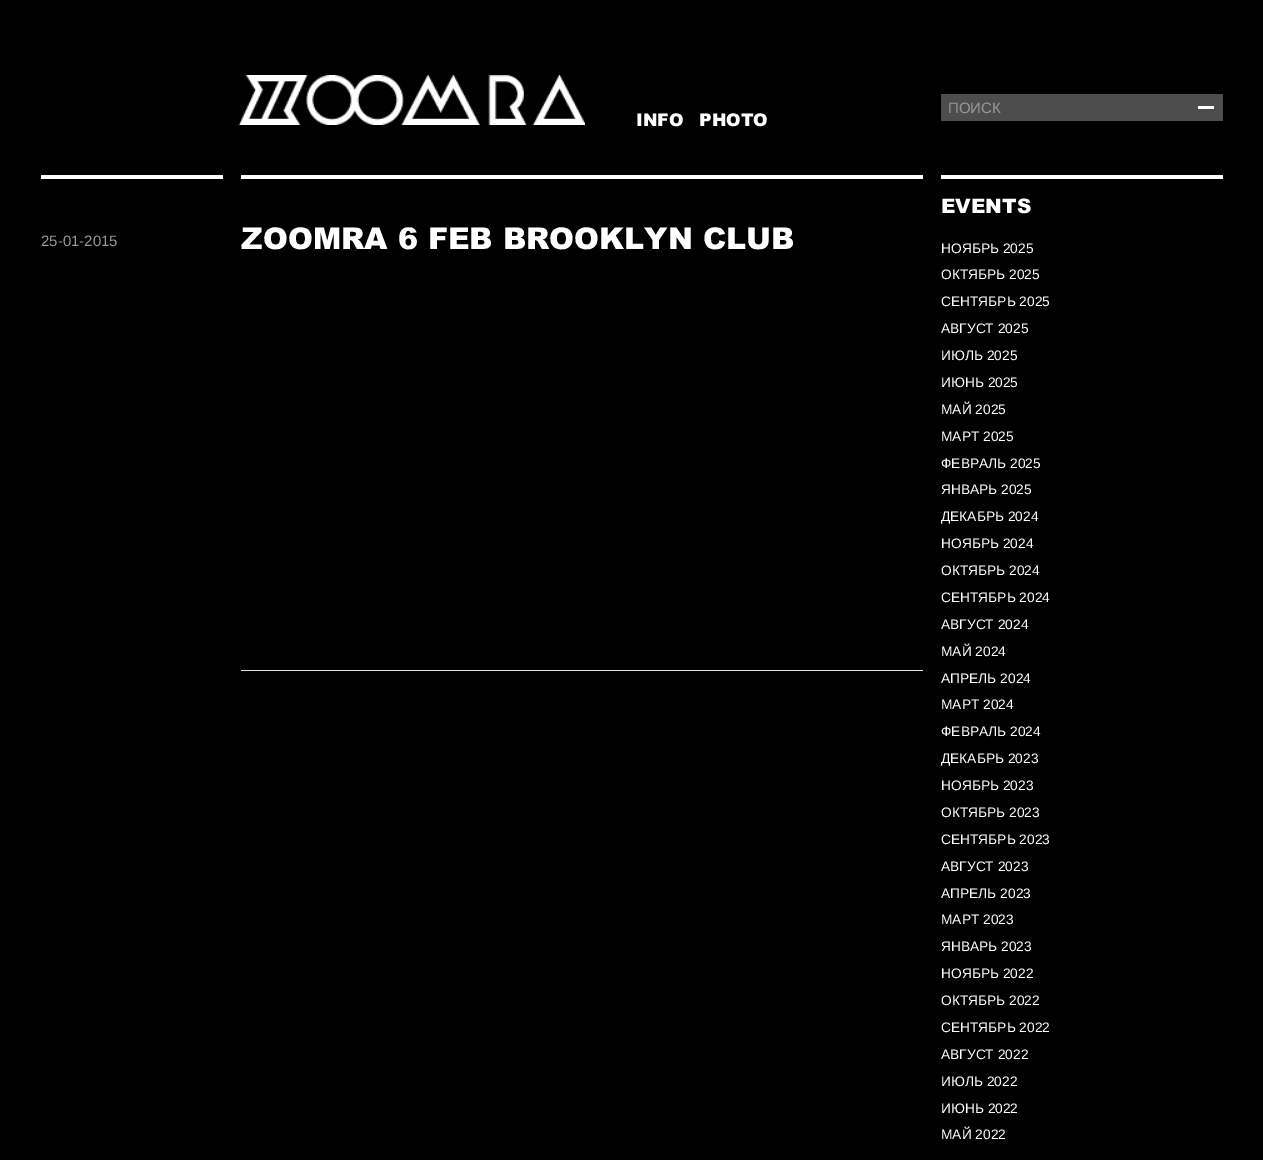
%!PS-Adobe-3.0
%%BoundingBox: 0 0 1263 1160
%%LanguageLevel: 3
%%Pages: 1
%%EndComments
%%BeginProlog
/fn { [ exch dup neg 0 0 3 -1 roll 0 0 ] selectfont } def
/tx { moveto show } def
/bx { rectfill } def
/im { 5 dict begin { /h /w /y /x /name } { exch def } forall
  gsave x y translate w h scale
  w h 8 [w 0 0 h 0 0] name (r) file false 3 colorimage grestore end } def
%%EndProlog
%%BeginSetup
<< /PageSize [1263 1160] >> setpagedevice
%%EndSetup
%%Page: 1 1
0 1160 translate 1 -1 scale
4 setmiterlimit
0 setgray
0 0 1263 1160 bx
(image0.raw) 238 75 347 50 im
0.302 setgray
941 94 282 27 bx
/LiberationSans-Regular 15 fn
0.6 setgray
(ПОИСК) 948 113 tx
1 setgray
1198 106 16 3 bx
/Arial-Black 17.5 fn
(INFO) 636 126 tx
(PHOTO) 699 126 tx
41 175 182 4 bx
/LiberationSans-Regular 15 fn
0.6 setgray
(25-01-2015) 41 246 tx
1 setgray
241 175 682 4 bx
/Arial-Black 30 fn
(ZOOMRA 6 FEB BROOKLYN CLUB) 241 249 tx
0.898 setgray
241 670 682 1 bx
1 setgray
941 175 282 4 bx
/Arial-Black 20 fn
(EVENTS) 941 213 tx
/LiberationSans-Regular 13.75 fn
(НОЯБРЬ 2025) 941 253 tx
(ОКТЯБРЬ 2025) 941 279 tx
(СЕНТЯБРЬ 2025) 941 306 tx
(АВГУСТ 2025) 941 333 tx
(ИЮЛЬ 2025) 941 360 tx
(ИЮНЬ 2025) 941 387 tx
(МАЙ 2025) 941 414 tx
(МАРТ 2025) 941 441 tx
(ФЕВРАЛЬ 2025) 941 468 tx
(ЯНВАРЬ 2025) 941 494 tx
(ДЕКАБРЬ 2024) 941 521 tx
(НОЯБРЬ 2024) 941 548 tx
(ОКТЯБРЬ 2024) 941 575 tx
(СЕНТЯБРЬ 2024) 941 602 tx
(АВГУСТ 2024) 941 629 tx
(МАЙ 2024) 941 656 tx
(АПРЕЛЬ 2024) 941 683 tx
(МАРТ 2024) 941 709 tx
(ФЕВРАЛЬ 2024) 941 736 tx
(ДЕКАБРЬ 2023) 941 763 tx
(НОЯБРЬ 2023) 941 790 tx
(ОКТЯБРЬ 2023) 941 817 tx
(СЕНТЯБРЬ 2023) 941 844 tx
(АВГУСТ 2023) 941 871 tx
(АПРЕЛЬ 2023) 941 898 tx
(МАРТ 2023) 941 924 tx
(ЯНВАРЬ 2023) 941 951 tx
(НОЯБРЬ 2022) 941 978 tx
(ОКТЯБРЬ 2022) 941 1005 tx
(СЕНТЯБРЬ 2022) 941 1032 tx
(АВГУСТ 2022) 941 1059 tx
(ИЮЛЬ 2022) 941 1086 tx
(ИЮНЬ 2022) 941 1113 tx
(МАЙ 2022) 941 1139 tx
showpage
%%EOF
